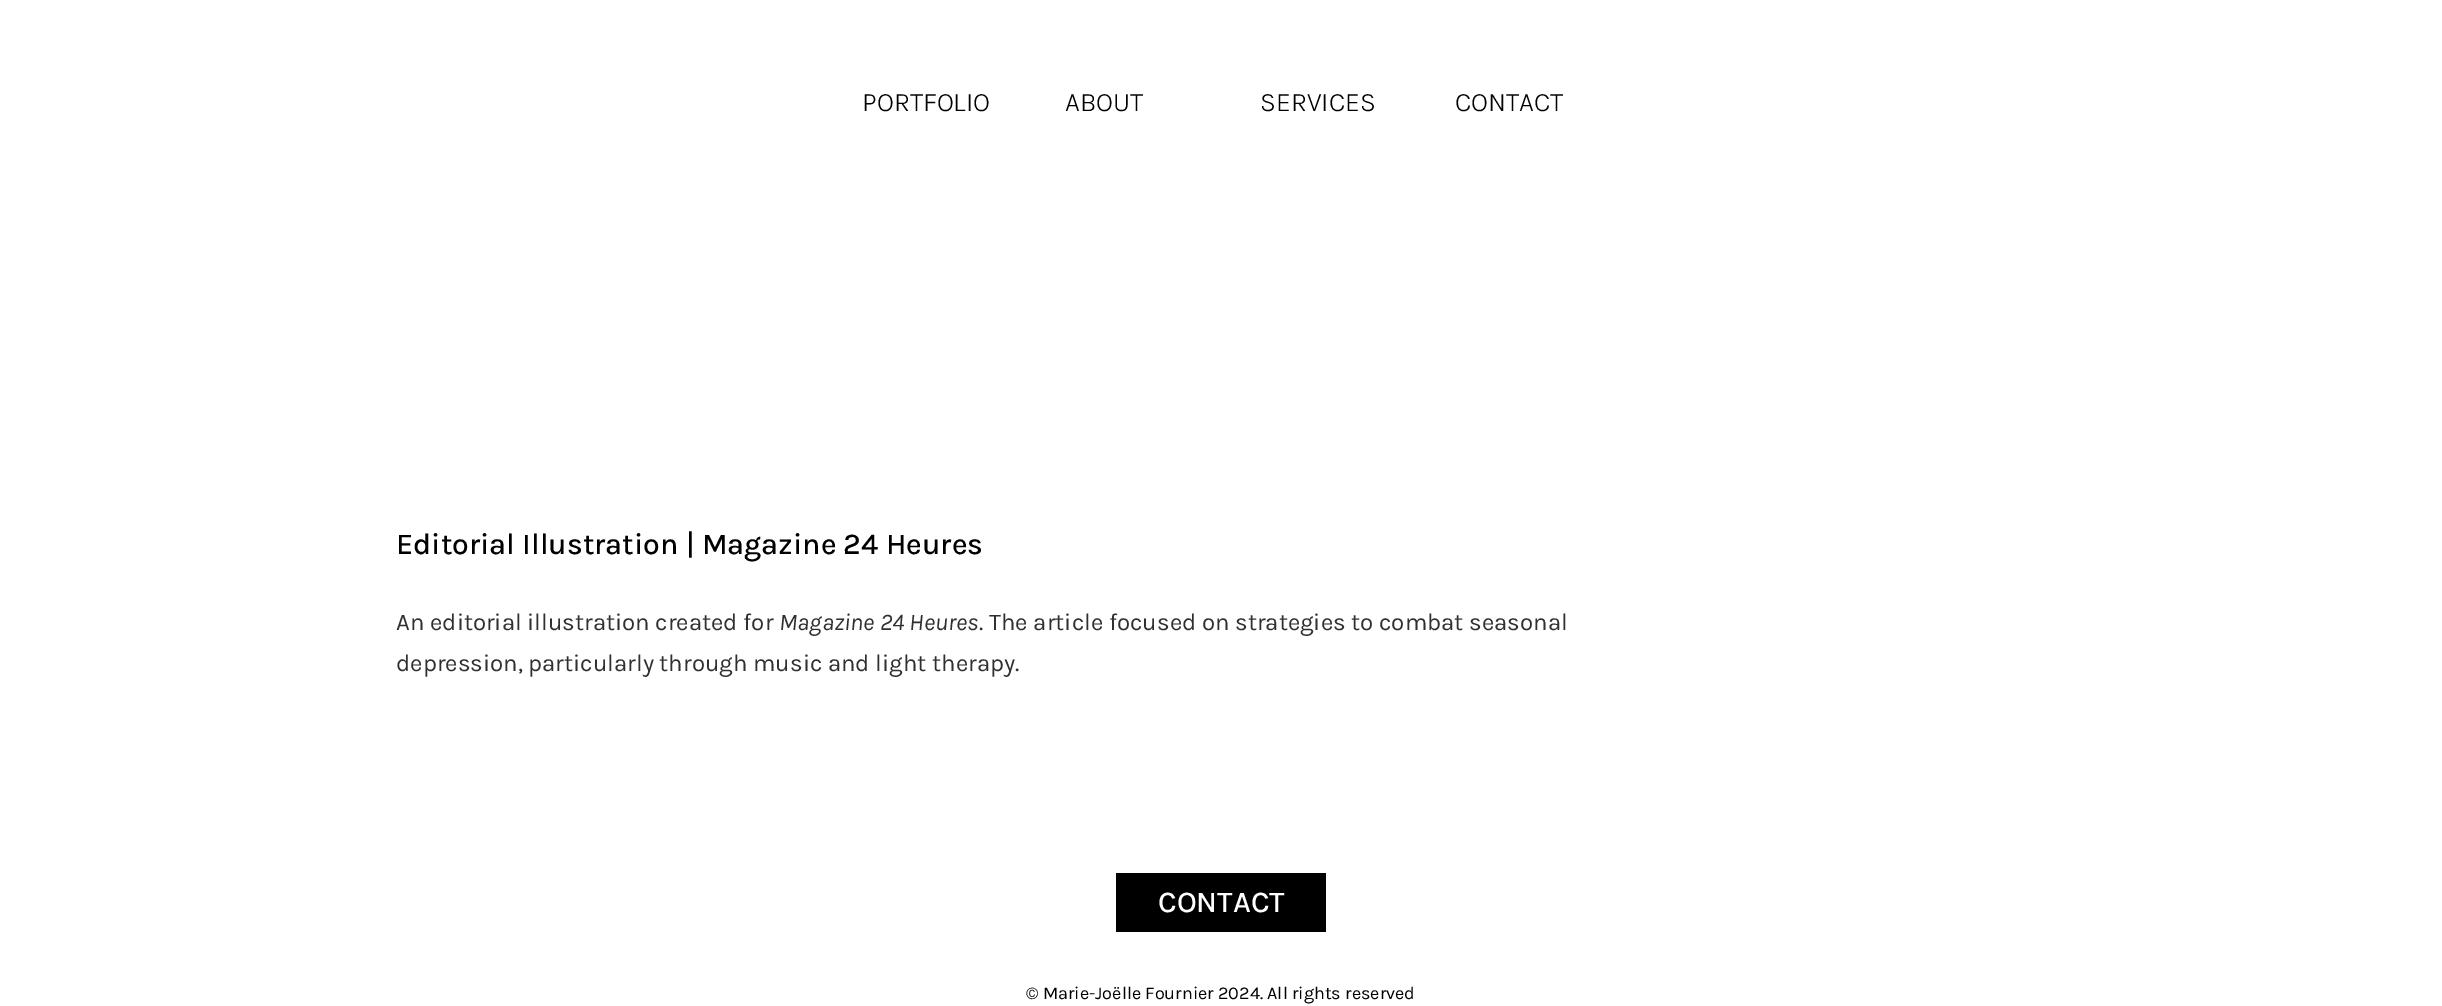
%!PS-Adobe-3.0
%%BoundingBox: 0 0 2442 1006
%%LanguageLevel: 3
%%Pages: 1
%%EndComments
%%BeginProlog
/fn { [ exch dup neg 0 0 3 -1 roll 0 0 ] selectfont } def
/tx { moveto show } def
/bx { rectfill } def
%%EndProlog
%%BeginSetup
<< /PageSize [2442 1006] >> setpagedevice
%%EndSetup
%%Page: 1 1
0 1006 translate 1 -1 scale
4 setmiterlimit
1 setgray
0 0 2442 1006 bx
/Karla-Light 27 fn
0 setgray
(PORTFOLIO) 862 111 tx
(ABOUT) 1065 111 tx
(SERVICES) 1260 111 tx
(CONTACT) 1455 111 tx
/Karla-Medium 30 fn
(Editorial Illustration | Magazine 24 Heures) 396 554 tx
/Karla-Regular 24 fn
0.188 setgray
(An editorial illustration created for) 396 630 tx
/Karla-Italic 24 fn
(Magazine 24 Heures) 779 630 tx
/Karla-Regular 24 fn
(. The article focused on strategies to combat seasonal) 979 630 tx
(depression, particularly through music and light therapy.) 396 671 tx
0 setgray
1116 873 210 59 bx
/Karla-Medium 30 fn
1 setgray
(CONTACT) 1158 912 tx
/Karla-Regular 18 fn
0 setgray
(© Marie-Joëlle Fournier 2024. All rights reserved) 1026 999 tx
showpage
%%EOF
